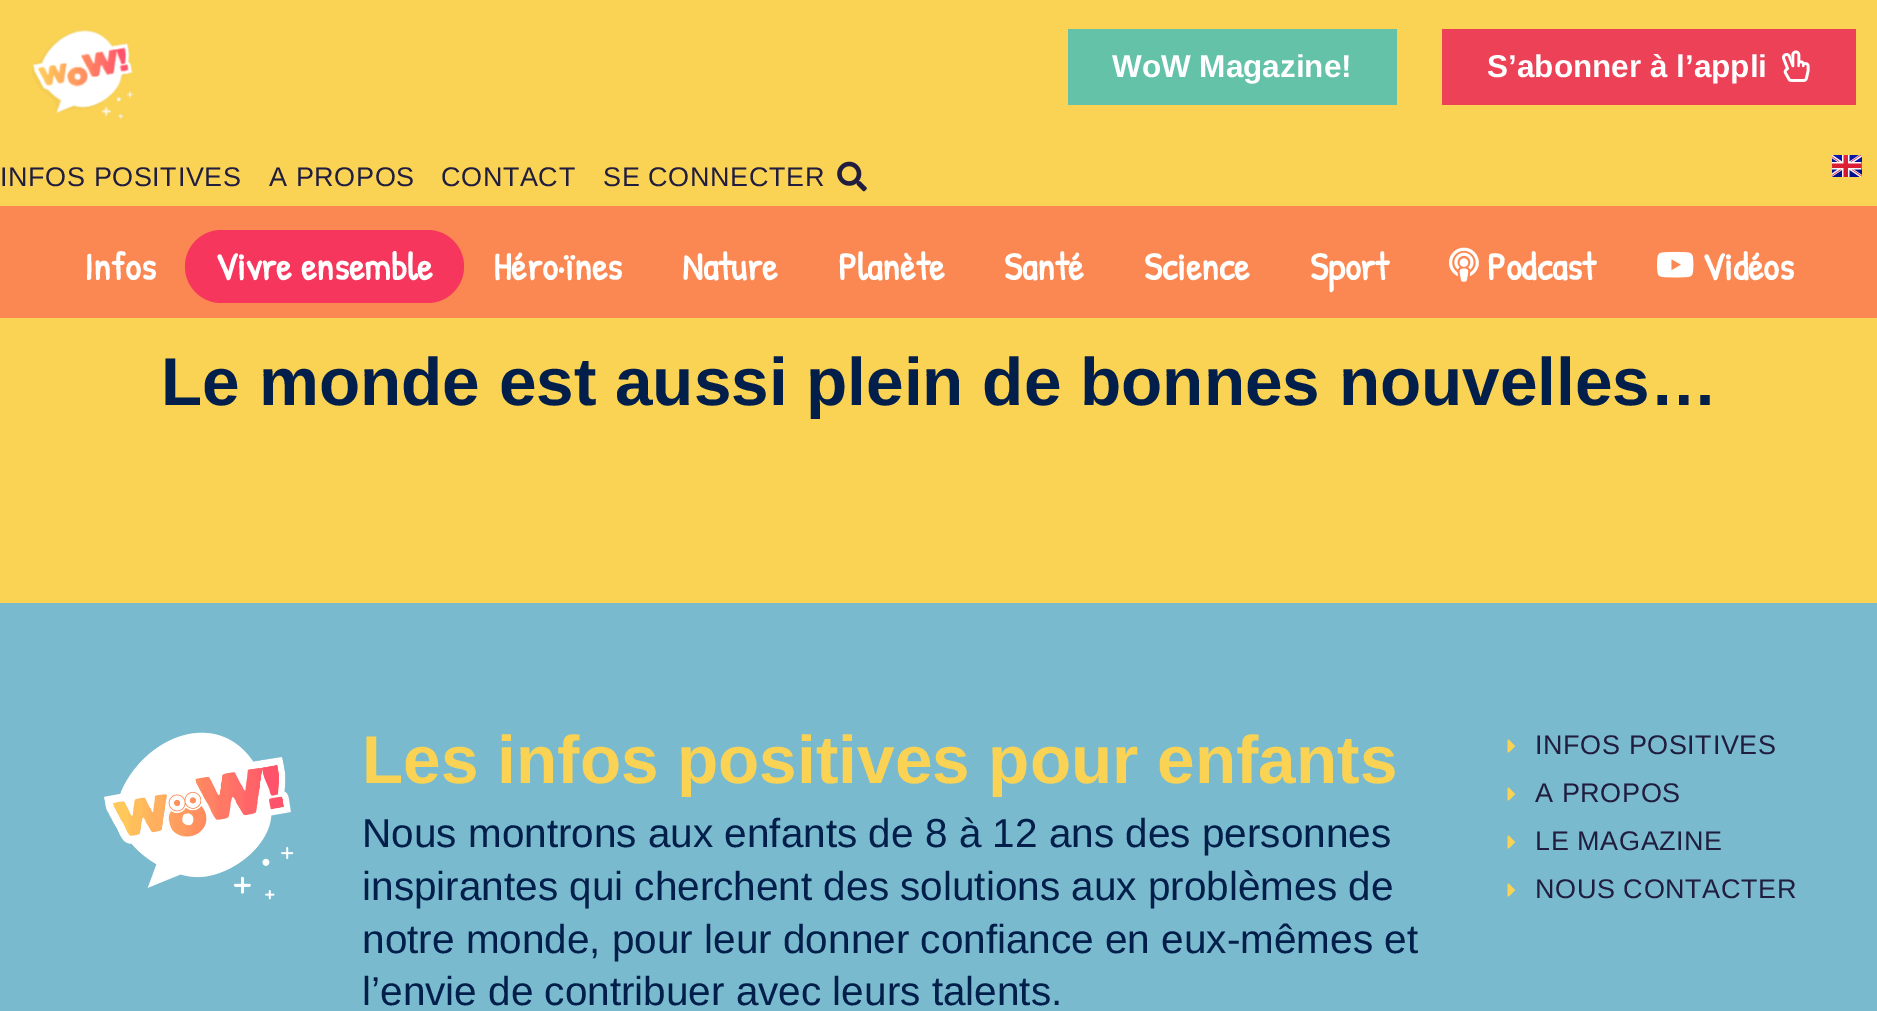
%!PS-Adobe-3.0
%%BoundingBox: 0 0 1877 1011
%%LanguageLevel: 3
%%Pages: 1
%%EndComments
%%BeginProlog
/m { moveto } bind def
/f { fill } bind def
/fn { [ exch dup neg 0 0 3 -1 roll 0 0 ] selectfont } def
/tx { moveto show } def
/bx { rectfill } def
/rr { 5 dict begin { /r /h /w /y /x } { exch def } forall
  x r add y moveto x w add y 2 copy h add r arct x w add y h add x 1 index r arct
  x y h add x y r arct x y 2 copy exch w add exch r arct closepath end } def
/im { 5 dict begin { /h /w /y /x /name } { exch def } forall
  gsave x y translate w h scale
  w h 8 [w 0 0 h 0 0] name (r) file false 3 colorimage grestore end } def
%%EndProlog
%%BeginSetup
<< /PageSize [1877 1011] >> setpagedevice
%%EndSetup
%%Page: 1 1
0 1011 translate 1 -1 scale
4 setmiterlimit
0.984 0.827 0.329 setrgbcolor
0 0 1877 1011 bx
0.392 0.761 0.663 setrgbcolor
1068 29 329 76 bx
/LiberationSans-Bold 31.5 fn
1 setgray
(WoW Magazine!) 1112 77 tx
0.929 0.255 0.341 setrgbcolor
1442 29 414 76 bx
1 setgray
(S’abonner à l’appli) 1487 77 tx
(image0.raw) 1782 50 28 32 im
(image1.raw) 1832 155 30 22 im
(image2.raw) 32 30 102 90 im
/LiberationSans-Regular 27 fn
0.125 0.114 0.247 setrgbcolor
0 186 m 0.6 0 (INFOS POSITIVES) ashow
269 186 m 0.6 0 (A PROPOS) ashow
441 186 m 0.6 0 (CONTACT) ashow
603 186 m 0.6 0 (SE CONNECTER) ashow
(image3.raw) 837 161 30 31 im
0.984 0.533 0.322 setrgbcolor
0 206 1877 112 bx
/PatrickHand-Bold 39 fn
1 setgray
(Infos) 84 280 tx
0.965 0.212 0.361 setrgbcolor
185 230 279 73 36.5 rr f
1 setgray
(Vivre ensemble) 215 280 tx
(Héro·ïnes) 493 280 tx
(Nature) 682 280 tx
(Planète) 838 280 tx
(Santé) 1004 280 tx
(Science) 1144 280 tx
(Sport) 1310 280 tx
(image4.raw) 1449 247 30 35 im
(Podcast) 1487 280 tx
(image5.raw) 1657 251 37 27 im
(Vidéos) 1702 280 tx
/LiberationSans-Bold 67.5 fn
0.008 0.118 0.29 setrgbcolor
(Le monde est aussi plein de bonnes nouvelles…) 161 405 tx
0.475 0.729 0.808 setrgbcolor
0 603 1877 408 bx
(image6.raw) 104 732 190 168 im
0.984 0.827 0.329 setrgbcolor
(Les infos positives pour enfants) 362 783 tx
/LiberationSans-Regular 40.5 fn
0.008 0.118 0.29 setrgbcolor
(Nous montrons aux enfants de 8 à 12 ans des personnes) 362 847 tx
(inspirantes qui cherchent des solutions aux problèmes de) 362 900 tx
(notre monde, pour leur donner confiance en eux-mêmes et) 362 953 tx
(l’envie de contribuer avec leurs talents.) 362 1005 tx
(image7.raw) 1507 739 8 14 im
/LiberationSans-Regular 27 fn
0.125 0.114 0.247 setrgbcolor
1535 754 m 0.6 0 (INFOS POSITIVES) ashow
(image7.raw) 1507 787 8 14 im
1535 802 m 0.6 0 (A PROPOS) ashow
(image7.raw) 1507 835 8 14 im
1535 850 m 0.6 0 (LE MAGAZINE) ashow
(image7.raw) 1507 883 8 14 im
1535 898 m 0.6 0 (NOUS CONTACTER) ashow
showpage
%%EOF
